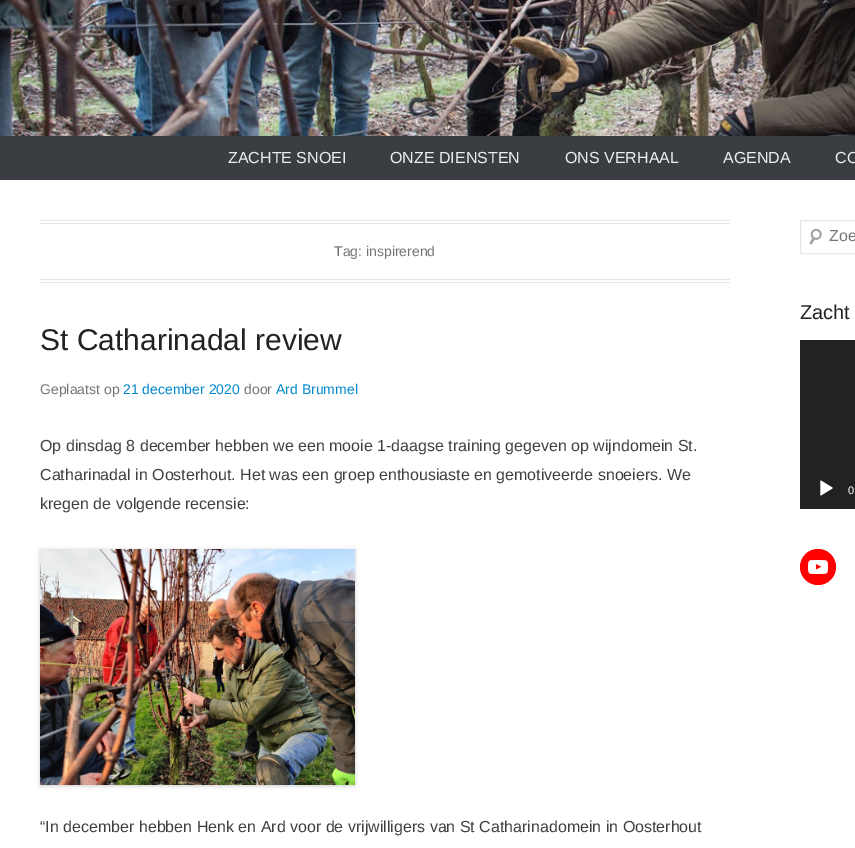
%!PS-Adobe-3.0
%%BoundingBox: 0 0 855 848
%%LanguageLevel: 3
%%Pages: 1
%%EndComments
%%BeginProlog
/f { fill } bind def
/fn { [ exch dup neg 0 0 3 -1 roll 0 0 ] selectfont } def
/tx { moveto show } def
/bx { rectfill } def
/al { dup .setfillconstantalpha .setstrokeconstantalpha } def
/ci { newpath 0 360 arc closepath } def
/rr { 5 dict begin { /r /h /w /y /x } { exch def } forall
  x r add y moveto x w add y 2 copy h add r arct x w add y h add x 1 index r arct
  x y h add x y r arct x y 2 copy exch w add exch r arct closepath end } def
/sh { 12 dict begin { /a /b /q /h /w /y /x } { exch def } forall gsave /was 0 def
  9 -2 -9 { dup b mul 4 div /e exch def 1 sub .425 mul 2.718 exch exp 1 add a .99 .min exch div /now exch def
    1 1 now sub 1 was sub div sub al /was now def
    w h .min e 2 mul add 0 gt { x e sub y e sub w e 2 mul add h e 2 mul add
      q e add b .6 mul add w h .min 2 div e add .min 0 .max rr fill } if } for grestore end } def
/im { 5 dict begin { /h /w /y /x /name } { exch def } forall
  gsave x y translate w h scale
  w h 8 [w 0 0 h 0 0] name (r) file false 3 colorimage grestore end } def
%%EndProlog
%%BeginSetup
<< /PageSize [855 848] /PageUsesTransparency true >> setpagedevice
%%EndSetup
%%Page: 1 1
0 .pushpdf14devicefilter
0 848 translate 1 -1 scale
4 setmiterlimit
1 setgray
0 0 855 848 bx
(image0.raw) 0 0 855 136 im
0.227 0.239 0.255 setrgbcolor
0 136 855 44 bx
/LiberationSans-Regular 16 fn
0.933 setgray
(ZACHTE SNOEI) 228 163 tx
(ONZE DIENSTEN) 390 163 tx
(ONS VERHAAL) 565 163 tx
(AGENDA) 723 163 tx
(CO) 835 163 tx
0.902 setgray
40 220 690 1 bx
40 223 690 1 bx
40 279 690 1 bx
40 282 690 1 bx
/LiberationSans-Regular 14 fn
0.459 setgray
(Tag: inspirerend) 334 256 tx
/LiberationSans-Regular 30 fn
0.133 setgray
(St Catharinadal review) 40 350 tx
/LiberationSans-Regular 14 fn
0.459 setgray
(Geplaatst op) 40 394 tx
0 0.533 0.8 setrgbcolor
(21 december 2020) 123 394 tx
0.459 setgray
(door) 244 394 tx
0 0.533 0.8 setrgbcolor
(Ard Brummel) 276 394 tx
/LiberationSans-Regular 16 fn
0.251 setgray
(Op dinsdag 8 december hebben we een mooie 1-daagse training gegeven op wijndomein St.) 40 451 tx
(Catharinadal in Oosterhout. Het was een groep enthousiaste en gemotiveerde snoeiers. We) 40 480 tx
(kregen de volgende recensie:) 40 509 tx
0 setgray
40 550 315 236 0 2 0.2 sh
(image1.raw) 40 549 315 236 im
0.251 setgray
(“In december hebben Henk en Ard voor de vrijwilligers van St Catharinadomein in Oosterhout) 40 832 tx
(image2.raw) 809 228 13 17 im
0.902 setgray
800.5 220.5 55 33 rectstroke
0.459 setgray
(Zoe) 829 241 tx
/LiberationSans-Regular 20 fn
0.133 setgray
(Zacht) 800 319 tx
800 340 55 169 bx
(image3.raw) 820 480 13 16 im
/LiberationSans-Regular 11 fn
1 setgray
(0) 848 494 tx
1 0 0 setrgbcolor
818 567 18 ci f
(image4.raw) 808 560 20 14 im
.poppdf14devicefilter showpage
%%EOF
